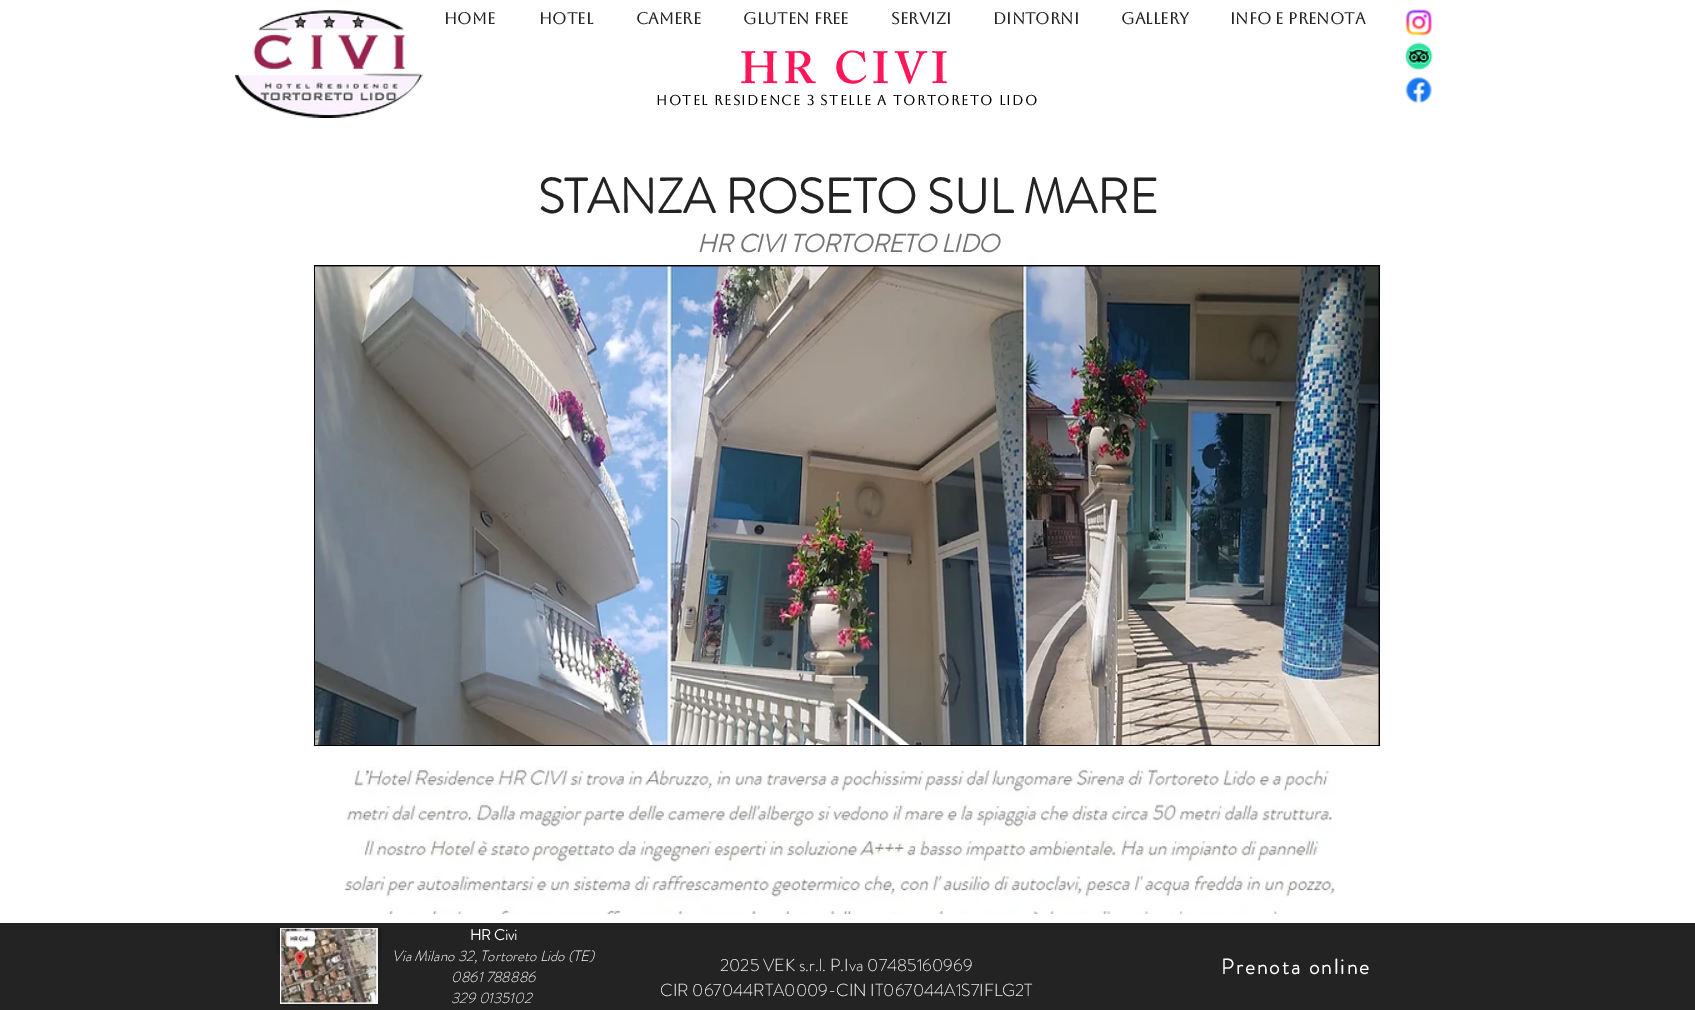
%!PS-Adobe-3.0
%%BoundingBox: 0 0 1695 1010
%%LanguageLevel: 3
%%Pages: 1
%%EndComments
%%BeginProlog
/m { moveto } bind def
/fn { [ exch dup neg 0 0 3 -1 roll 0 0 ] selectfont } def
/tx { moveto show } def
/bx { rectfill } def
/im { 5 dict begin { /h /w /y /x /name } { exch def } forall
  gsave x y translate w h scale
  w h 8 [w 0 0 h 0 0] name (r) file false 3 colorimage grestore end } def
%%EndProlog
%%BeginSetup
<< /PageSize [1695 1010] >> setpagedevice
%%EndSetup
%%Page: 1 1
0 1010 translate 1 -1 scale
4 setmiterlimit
1 setgray
0 0 1695 1010 bx
(image0.raw) 235 10 188 108 im
/Aboreto-Bold 16.25 fn
0.141 0.137 0.137 setrgbcolor
(HOME) 444 24 tx
(HOTEL) 539 24 tx
(CAMERE) 636 24 tx
(GLUTEN FREE) 743 24 tx
(SERVIZI) 891 24 tx
(DINTORNI) 993 24 tx
(GALLERY) 1121 24 tx
(INFO E PRENOTA) 1230 24 tx
(image1.raw) 1405 9 27 27 im
(image2.raw) 1405 42 28 29 im
(image3.raw) 1405 77 27 27 im
/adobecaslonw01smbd-SemiBold 45 fn
1 0.086 0.349 setrgbcolor
740 83 m 4.5 0 (HR CIVI) ashow
/Aboreto-Bold 13.75 fn
0 setgray
656 105 m 1.4 0 (Hotel Residence 3 stelle a Tortoreto LidO) ashow
/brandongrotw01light-Bold 48.75 fn
0.141 0.137 0.137 setrgbcolor
(STANZA ROSETO SUL MARE) 538 213 tx
/brandongrotw01light-BoldItalic 25 fn
0.451 setgray
(HR CIVI TORTORETO LIDO) 697 252 tx
0 setgray
314 265 1066 481 bx
(image4.raw) 315 266 1064 479 im
(image5.raw) 344 766 991 148 im
0.141 0.137 0.137 setrgbcolor
0 923 1695 87 bx
(image6.raw) 276 928 4 26 im
1 setgray
280 928 98 76 bx
(image7.raw) 281 928 96 75 im
(image8.raw) 280 1003 98 3 im
(image9.raw) 377 928 5 56 im
/brandongrotw01light-Bold 15 fn
(HR Civi) 470 940 tx
/brandongrotw01light-LightItalic 15 fn
(Via Milano 32, Tortoreto Lido \(TE\)) 392 961 tx
(0861 788886) 451 982 tx
(329 0135102) 451 1003 tx
/brandongrotw01light-Light 17.5 fn
0.961 setgray
(2025 VEK s.r.l. P.Iva 07485160969) 720 971 tx
(CIR 067044RTA0009-CIN IT067044A1S7IFLG2T) 660 996 tx
/brandongrotw01light-Bold 21.25 fn
1 setgray
1221 974 m 2.1 0 (Prenota online) ashow
showpage
%%EOF
